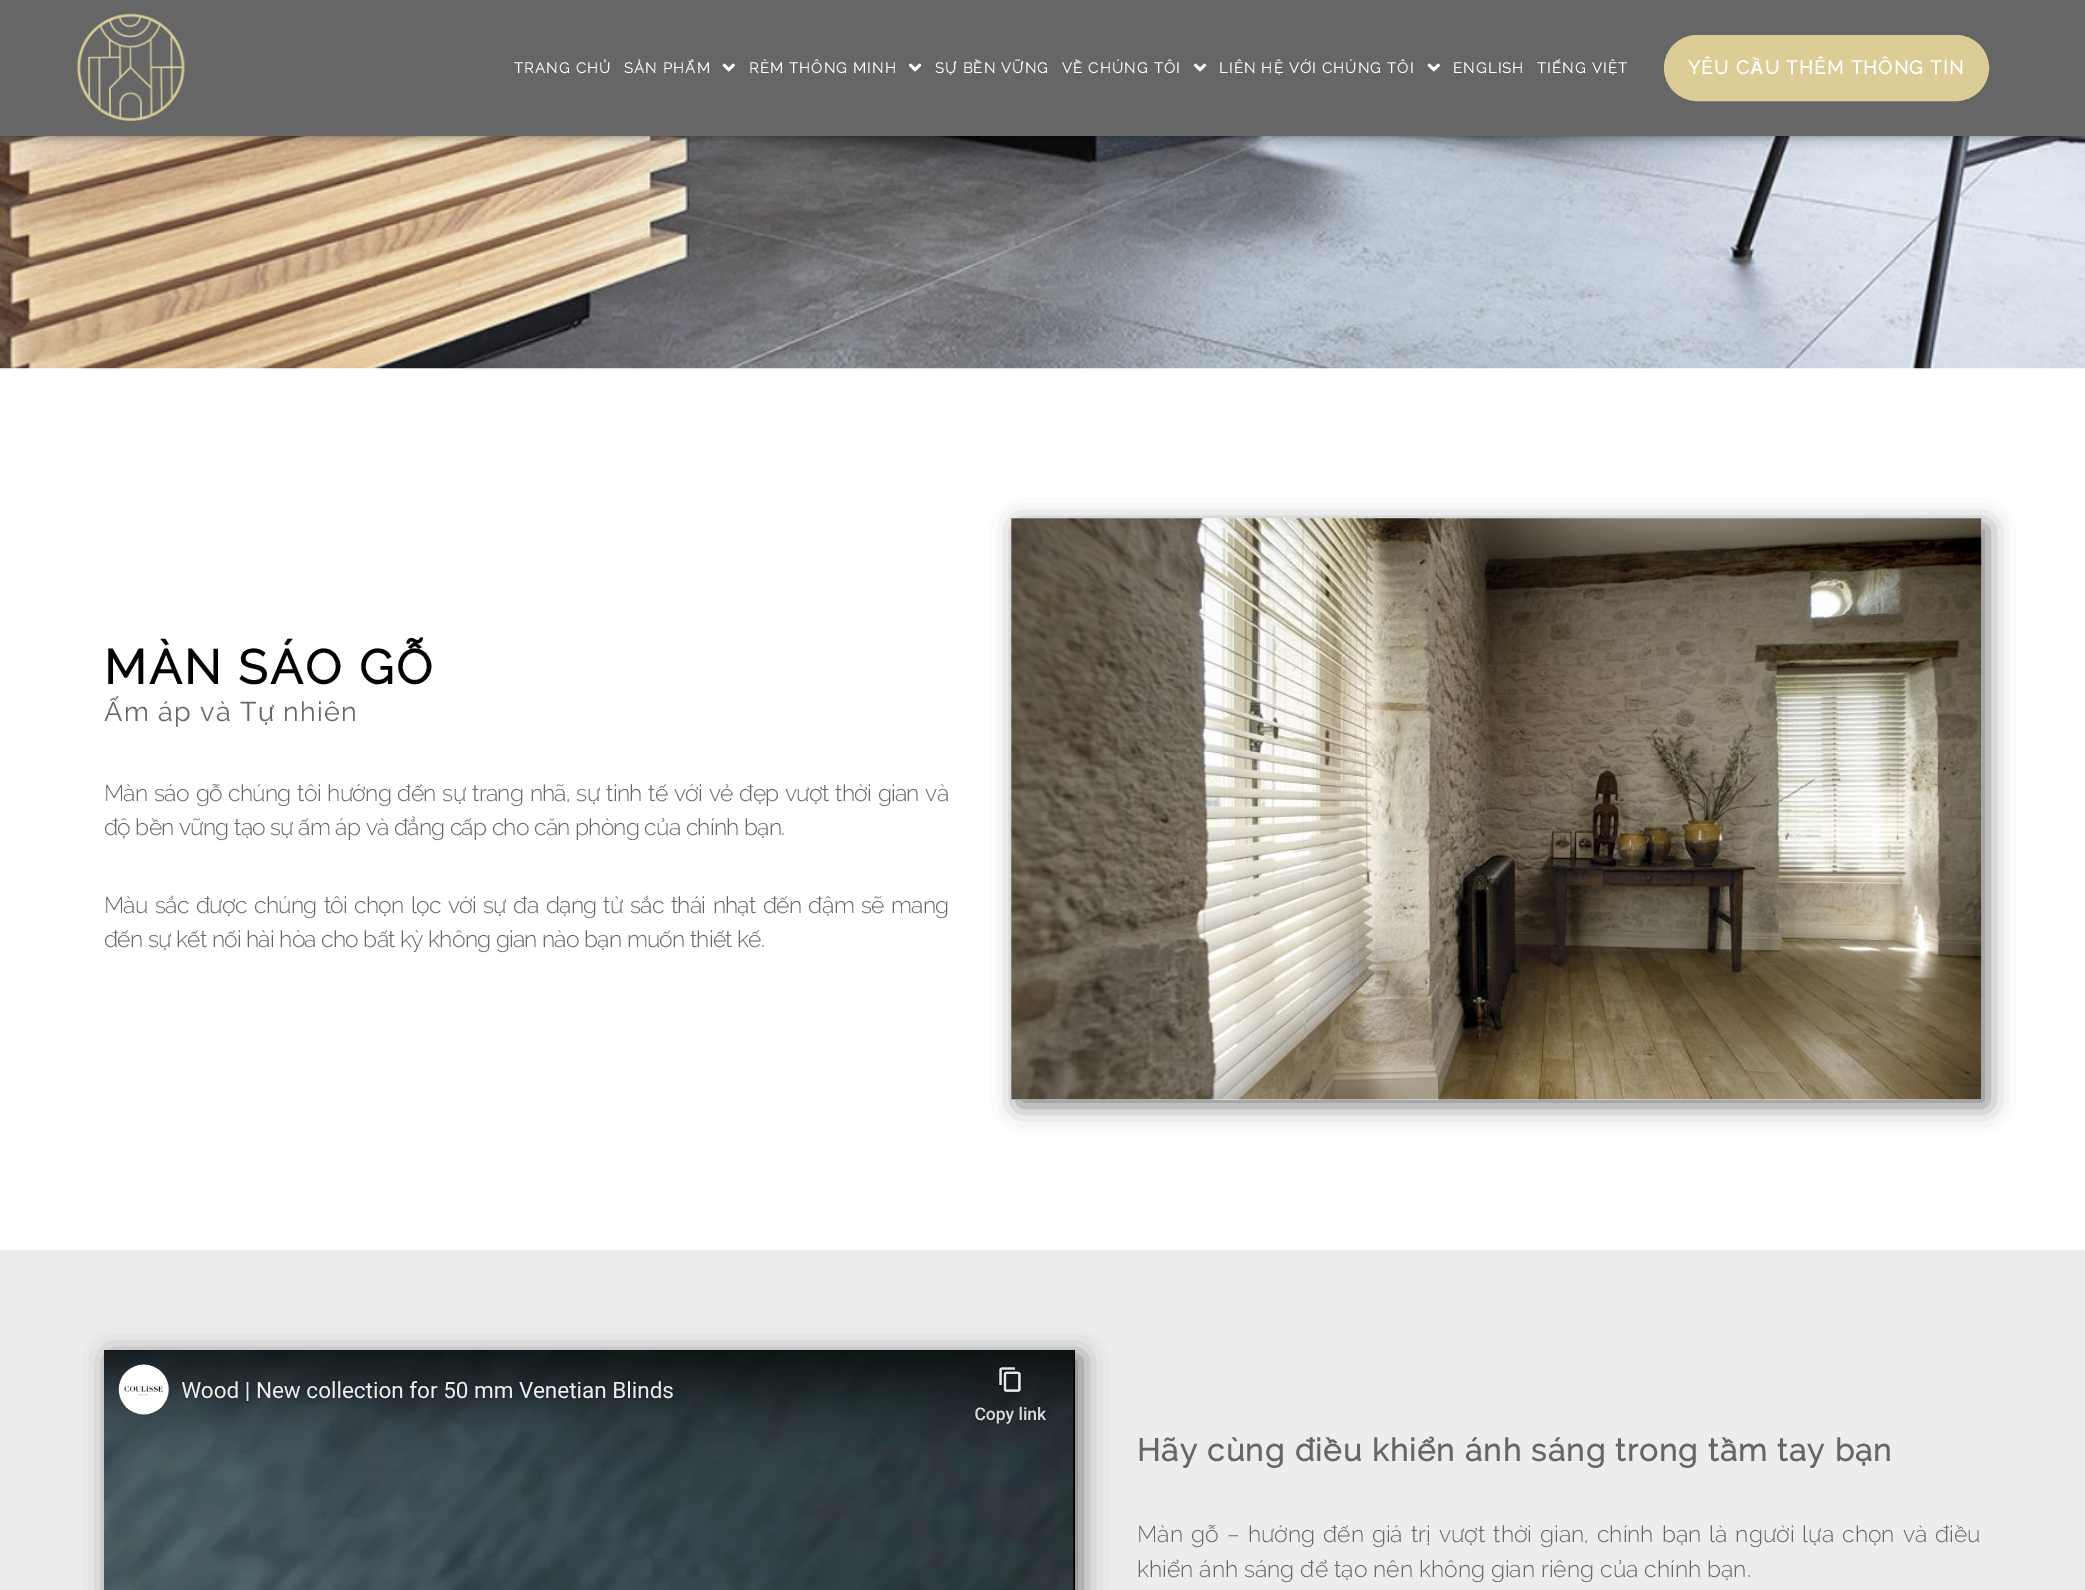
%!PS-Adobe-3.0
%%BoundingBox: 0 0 2085 1590
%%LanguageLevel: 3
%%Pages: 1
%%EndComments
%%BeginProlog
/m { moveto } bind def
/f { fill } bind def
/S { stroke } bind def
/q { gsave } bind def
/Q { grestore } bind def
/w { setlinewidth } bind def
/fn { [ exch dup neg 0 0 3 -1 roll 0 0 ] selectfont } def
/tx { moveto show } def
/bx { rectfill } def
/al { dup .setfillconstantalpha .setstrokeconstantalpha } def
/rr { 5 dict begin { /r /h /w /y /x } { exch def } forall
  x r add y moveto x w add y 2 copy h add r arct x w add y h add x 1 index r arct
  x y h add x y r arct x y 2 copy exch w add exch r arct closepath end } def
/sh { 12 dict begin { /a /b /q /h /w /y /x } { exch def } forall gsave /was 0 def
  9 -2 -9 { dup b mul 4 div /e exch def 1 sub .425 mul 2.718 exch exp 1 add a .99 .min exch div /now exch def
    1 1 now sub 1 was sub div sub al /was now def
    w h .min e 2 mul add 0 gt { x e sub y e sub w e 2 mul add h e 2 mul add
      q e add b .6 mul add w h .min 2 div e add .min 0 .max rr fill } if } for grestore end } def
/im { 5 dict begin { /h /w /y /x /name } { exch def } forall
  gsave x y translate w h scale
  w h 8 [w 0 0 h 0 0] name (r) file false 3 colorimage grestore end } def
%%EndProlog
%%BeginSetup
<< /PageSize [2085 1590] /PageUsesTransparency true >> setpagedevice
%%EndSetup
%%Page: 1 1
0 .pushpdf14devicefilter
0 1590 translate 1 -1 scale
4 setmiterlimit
1 setgray
0 0 2085 1590 bx
(image3.raw) 0 136 2085 233 im
0 setgray
0 0 2085 136 0 6 0.5 sh
0.4 setgray
0 0 2085 136 bx
(image0.raw) 77 13 108 108 im
/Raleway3-Bold 14.6 fn
1 setgray
514 73 m 1.25 0 (TRANG CHỦ) ashow
624 73 m 1.25 0 (SẢN PHẨM) ashow
(image1.raw) 722 63 13 9 im
749 73 m 1.25 0 (RÈM THÔNG MINH) ashow
(image2.raw) 908 63 14 9 im
935 73 m 1.25 0 (SỰ BỀN VỮNG) ashow
1062 73 m 1.25 0 (VỀ CHÚNG TÔI) ashow
(image2.raw) 1193 63 14 9 im
1219 73 m 1.25 0 (LIÊN HỆ VỚI CHÚNG TÔI) ashow
(image1.raw) 1427 63 13 9 im
1453 73 m 1.25 0 (ENGLISH) ashow
1537 73 m 1.25 0 (TIẾNG VIỆT) ashow
0.863 0.804 0.588 setrgbcolor
1666 37 321 62 31 rr q f Q
4 w
S
/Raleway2-Bold 18.75 fn
1 setgray
1688 74 m 1.25 0 (YÊU C) ashow
/LiberationSans-Bold 18.75 fn
1750 74 m 1.25 0 (Ầ) ashow
/Raleway2-Bold 18.75 fn
1765 74 m 1.25 0 (U THÊM THÔNG TIN) ashow
/Raleway-Bold 48 fn
0 setgray
104 684 m 2.5 0 (MÀN SÁO GỖ) ashow
/Raleway-Regular 27.1 fn
0.4 setgray
104 721 m 1.25 0 (Ấm áp và Tự nhiên) ashow
/Raleway-Light 22.95 fn
104 801 m 1.4 0 32 -0.75 0 (Màn sáo gỗ) awidthshow
228 801 m 1.4 0 32 -0.75 0 (chúng tôi hướng đến sự trang nhã, sự tinh tế với vẻ đẹp vượt thời gian và) awidthshow
104 835 m -0.75 0 (độ bền vững tạo sự ấm áp và đẳng cấp cho căn phòng của chính bạn.) ashow
104 913 m 2 0 32 -0.75 0 (Màu sắc được chúng tôi chọn lọc với sự đa dạng từ sắc thái nhạt đến đậm sẽ mang) awidthshow
104 947 m -0.75 0 (đến sự kết nối hài hòa cho bất kỳ không gian nào bạn muốn thiết kế.) ashow
0 setgray
1018 525 970 581 0 12.5 0.5 sh
(image4.raw) 1011 518 971 582 im
0.929 setgray
0 1250 2085 340 bx
0 setgray
110 1356 971 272 0 12.5 0.5 sh
1073 1350 2 240 bx
(image5.raw) 104 1350 970 240 im
/Raleway-Bold 31.25 fn
0.4 setgray
1137 1461 m 1.25 0 (Hãy cùng điều khiển ánh sáng trong tầm tay bạn) ashow
/Raleway-Light 22.95 fn
1137 1542 m 2.1 0 32 (Màn gỗ – hướng đến giá trị vượt thời gian, chính bạn là người lựa chọn và điều) widthshow
(khiển ánh sáng để tạo nên không gian riêng của chính bạn.) 1137 1577 tx
.poppdf14devicefilter showpage
%%EOF
